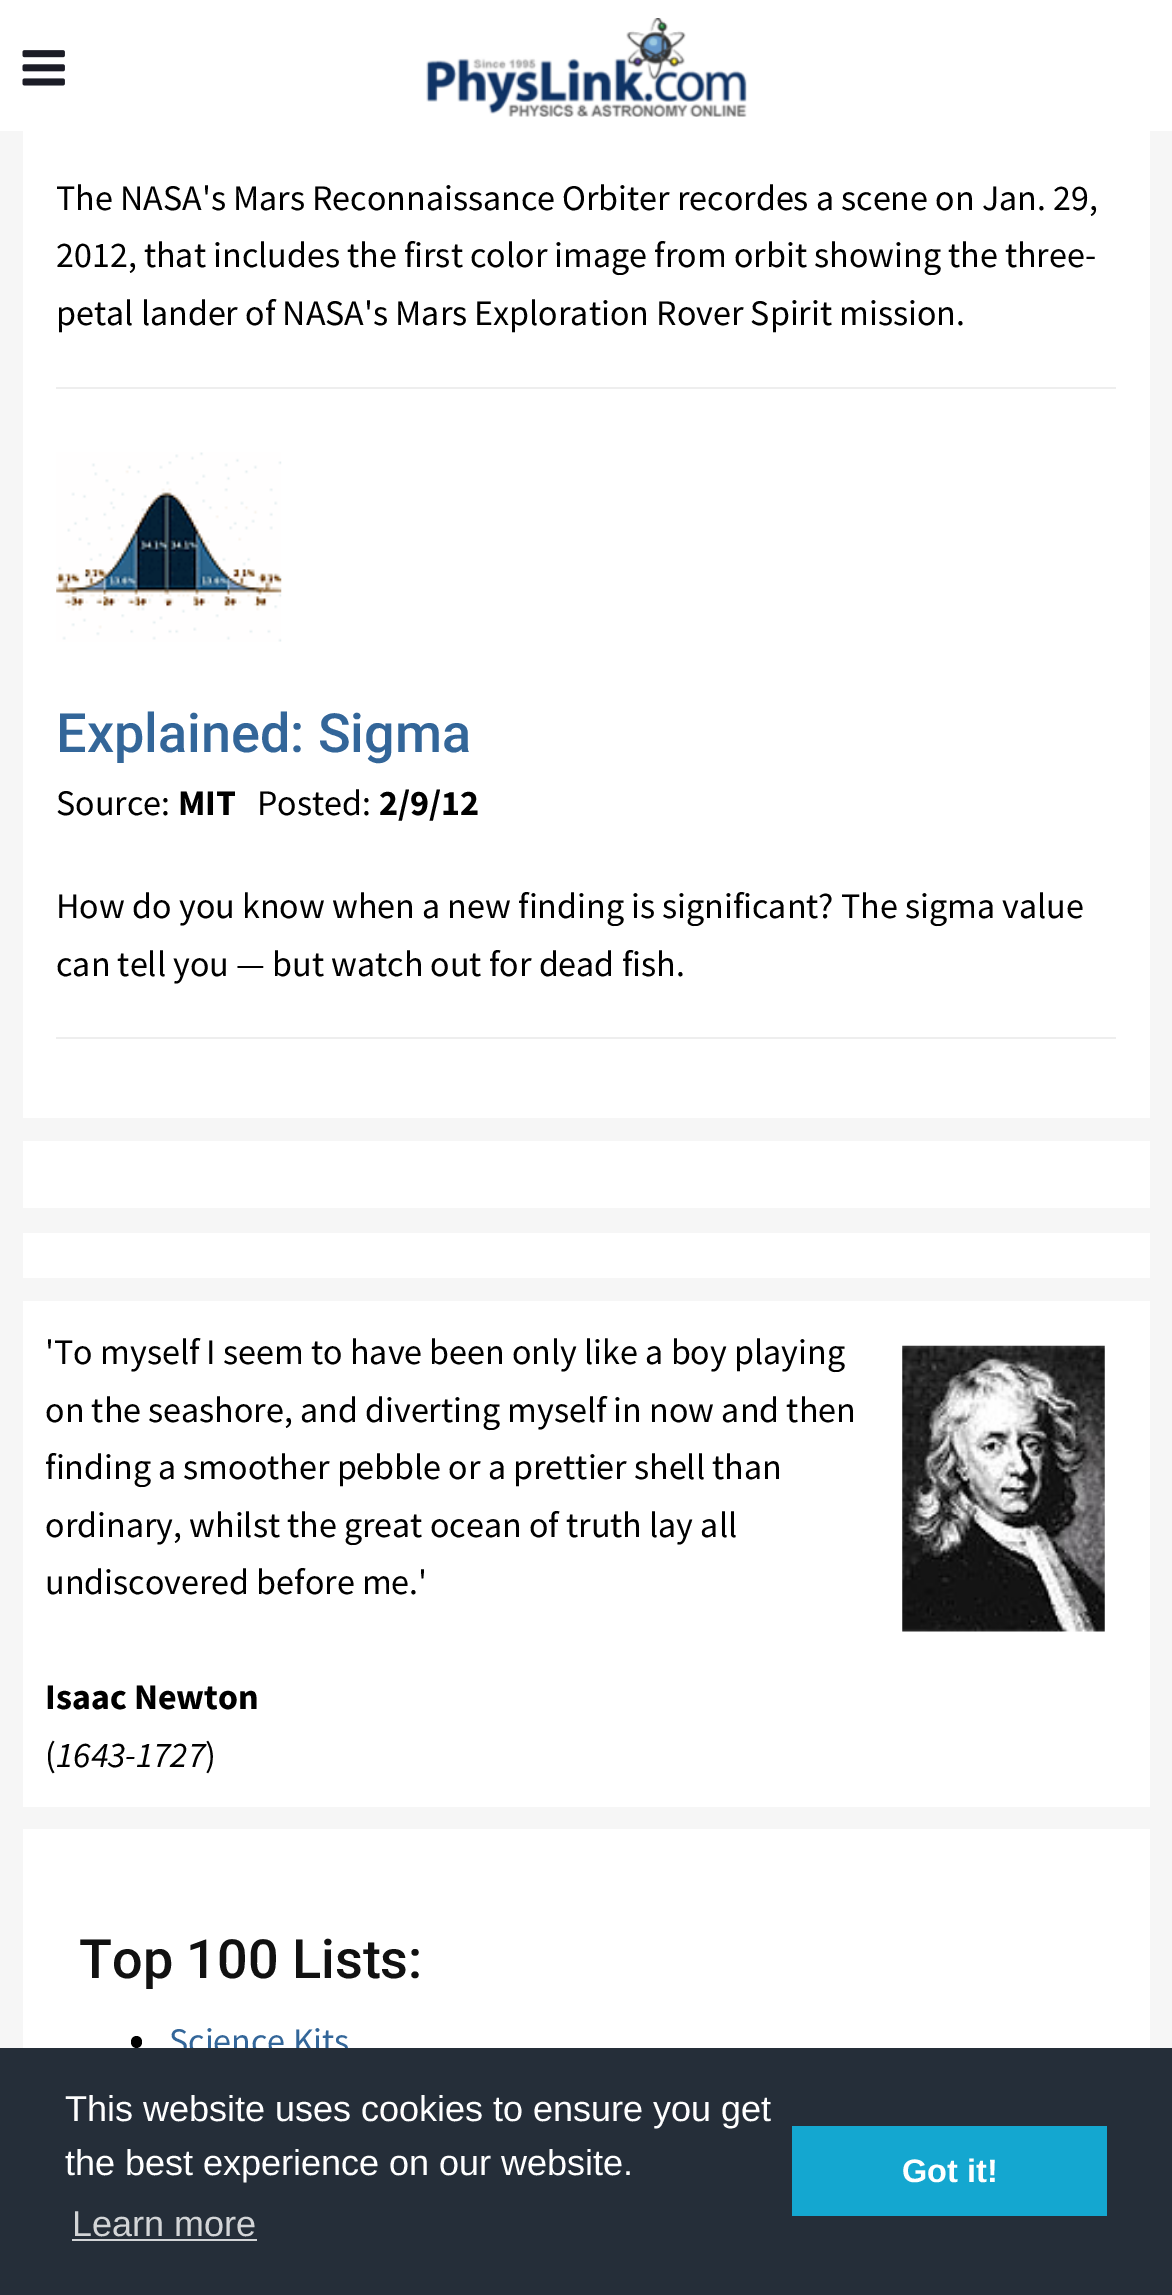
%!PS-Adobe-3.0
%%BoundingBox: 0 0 1172 2295
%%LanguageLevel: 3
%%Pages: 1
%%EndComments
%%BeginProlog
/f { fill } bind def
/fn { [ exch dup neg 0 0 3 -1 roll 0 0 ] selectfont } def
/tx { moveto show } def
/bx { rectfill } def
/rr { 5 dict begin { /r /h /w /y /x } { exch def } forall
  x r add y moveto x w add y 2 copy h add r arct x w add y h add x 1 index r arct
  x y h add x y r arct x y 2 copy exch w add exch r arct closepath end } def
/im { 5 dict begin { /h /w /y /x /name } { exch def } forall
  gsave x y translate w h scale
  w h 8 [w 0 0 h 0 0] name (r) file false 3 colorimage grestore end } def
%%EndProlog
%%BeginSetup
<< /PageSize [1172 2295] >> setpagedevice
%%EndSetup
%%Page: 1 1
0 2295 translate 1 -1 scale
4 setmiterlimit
0.965 setgray
0 0 1172 2295 bx
1 setgray
0 0 1172 131 bx
(image0.raw) 22 50 43 36 im
(image1.raw) 426 18 321 99 im
23 131 1127 987 bx
/SourceSansPro-Regular 36 fn
0 setgray
(The NASA's Mars Reconnaissance Orbiter recordes a scene on Jan. 29,) 56 210 tx
(2012, that includes the first color image from orbit showing the three-) 56 267 tx
(petal lander of NASA's Mars Exploration Rover Spirit mission.) 56 325 tx
0.933 setgray
56 387 1060 2 bx
(image2.raw) 56 452 226 190 im
/Roboto-Medium 54 fn
0.2 0.4 0.6 setrgbcolor
(Explained: Sigma) 56 752 tx
/SourceSansPro-Regular 36 fn
0 setgray
(Source:) 56 815 tx
/SourceSansPro-Bold 36 fn
(MIT) 178 815 tx
/SourceSansPro-Regular 36 fn
(Posted:) 257 815 tx
/SourceSansPro-Bold 36 fn
(2/9/12) 379 815 tx
/SourceSansPro-Regular 36 fn
(How do you know when a new finding is significant? The sigma value) 56 918 tx
(can tell you — but watch out for dead fish.) 56 976 tx
0.933 setgray
56 1037 1060 2 bx
1 setgray
23 1141 1127 67 bx
23 1233 1127 45 bx
23 1301 1127 506 bx
0 setgray
('To myself I seem to have been only like a boy playing) 45 1364 tx
(image3.raw) 902 1345 203 287 im
(on the seashore, and diverting myself in now and then) 45 1422 tx
(finding a smoother pebble or a prettier shell than) 45 1479 tx
(ordinary, whilst the great ocean of truth lay all) 45 1537 tx
(undiscovered before me.') 45 1594 tx
/SourceSansPro-Bold 36 fn
(Isaac Newton) 45 1709 tx
/SourceSansPro-Regular 36 fn
(\() 45 1767 tx
/SourceSansPro-Italic 36 fn
(1643-1727) 56 1767 tx
/SourceSansPro-Regular 36 fn
(\)) 205 1767 tx
1 setgray
23 1829 1127 219 bx
/Roboto-Medium 54 fn
0.067 setgray
(Top 100 Lists:) 79 1978 tx
0 setgray
131 2036 11 12 5.5 rr f
/SourceSansPro-Regular 36 fn
0.2 0.4 0.6 setrgbcolor
(Science Kits) 169 2053 tx
0.145 0.18 0.224 setrgbcolor
0 2048 1172 247 bx
/LiberationSans-Regular 36 fn
1 setgray
(This website uses cookies to ensure you get) 65 2121 tx
(the best experience on our website.) 65 2175 tx
0.827 0.835 0.843 setrgbcolor
(Learn more) 72 2236 tx
72 2239 185 2 bx
0.078 0.655 0.816 setrgbcolor
792 2126 315 90 bx
/LiberationSans-Bold 32.5 fn
1 setgray
(Got it!) 902 2182 tx
showpage
%%EOF
